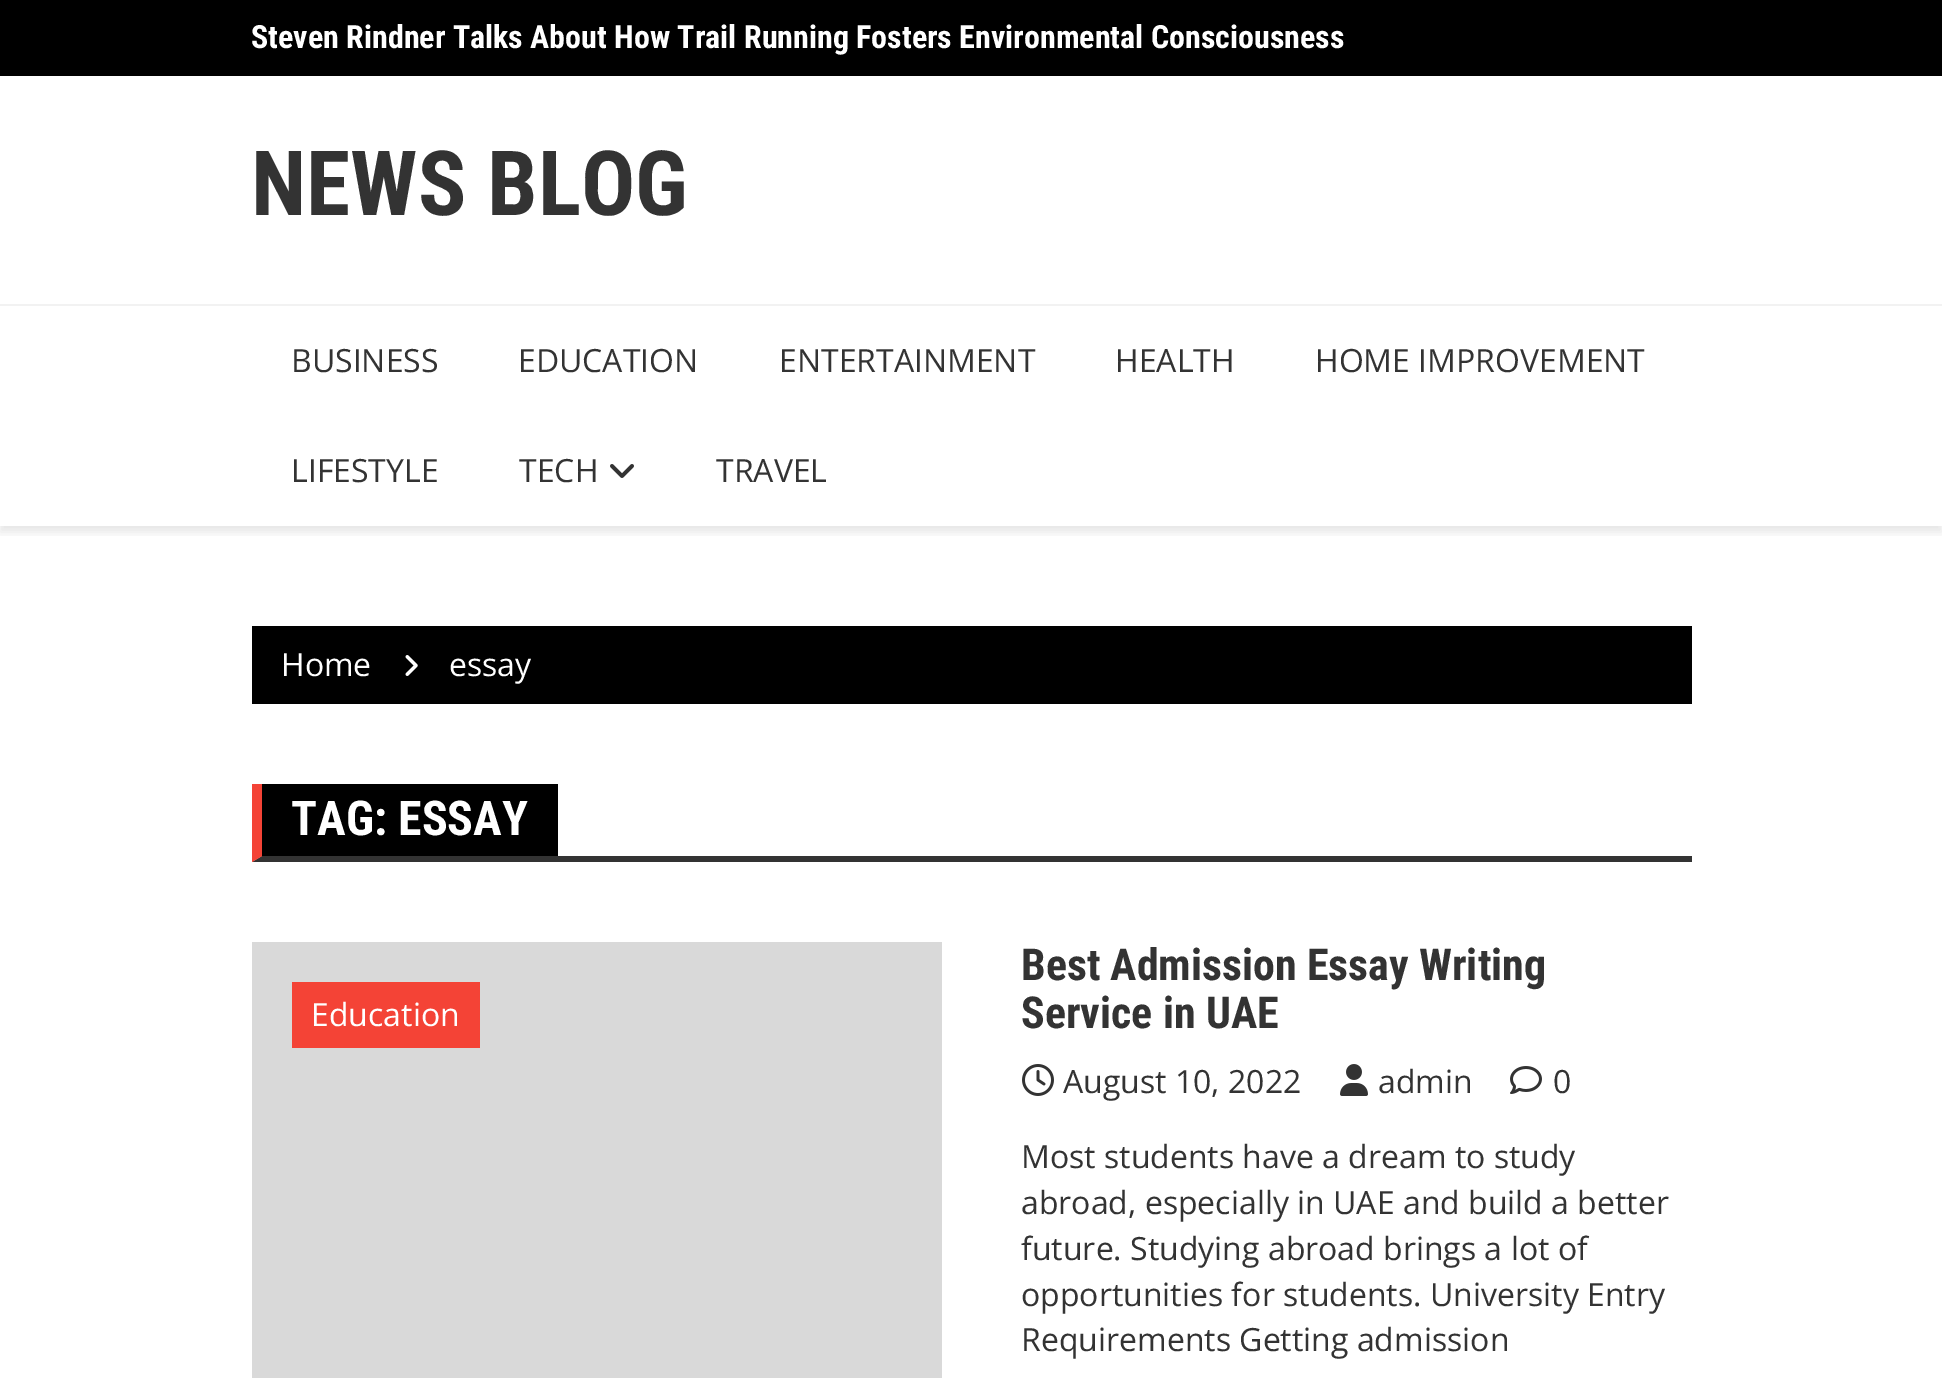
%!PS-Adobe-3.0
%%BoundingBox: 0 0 1942 1378
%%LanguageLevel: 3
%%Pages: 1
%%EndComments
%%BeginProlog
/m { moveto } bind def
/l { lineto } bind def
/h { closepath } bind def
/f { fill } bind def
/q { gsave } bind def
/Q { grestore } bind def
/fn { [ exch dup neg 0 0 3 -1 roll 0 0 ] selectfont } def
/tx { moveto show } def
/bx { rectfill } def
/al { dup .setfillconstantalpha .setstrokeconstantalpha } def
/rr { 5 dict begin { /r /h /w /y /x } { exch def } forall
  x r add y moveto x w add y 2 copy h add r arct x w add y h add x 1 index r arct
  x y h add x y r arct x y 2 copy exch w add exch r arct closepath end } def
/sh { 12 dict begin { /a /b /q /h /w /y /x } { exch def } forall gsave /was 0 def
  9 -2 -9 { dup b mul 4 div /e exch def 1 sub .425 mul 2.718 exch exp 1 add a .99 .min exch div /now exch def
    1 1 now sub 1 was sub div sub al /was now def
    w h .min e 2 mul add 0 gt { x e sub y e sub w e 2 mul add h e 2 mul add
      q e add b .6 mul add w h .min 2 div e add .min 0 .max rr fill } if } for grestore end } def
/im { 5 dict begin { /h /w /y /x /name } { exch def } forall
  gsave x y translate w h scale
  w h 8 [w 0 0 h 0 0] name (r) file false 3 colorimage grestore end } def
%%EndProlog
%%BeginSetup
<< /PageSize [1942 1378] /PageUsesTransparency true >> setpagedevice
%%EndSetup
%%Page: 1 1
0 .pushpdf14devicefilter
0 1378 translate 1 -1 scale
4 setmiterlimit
1 setgray
0 0 1942 1378 bx
0 setgray
0 0 1942 76 bx
/RobotoCondensed-Bold 32 fn
1 setgray
(Steven Rindner Talks About How Trail Running Fosters Environmental Consciousness) 251 48 tx
/RobotoCondensed-Bold 90 fn
0.2 setgray
(NEWS BLOG) 251 215 tx
q
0 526 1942 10 rectclip
0 setgray
0 310 1942 222 0 5 0.1 sh
Q
0.949 setgray
0 304 1942 2 bx
/OpenSans-Regular 32 fn
0.2 setgray
(BUSINESS) 291 372 tx
(EDUCATION) 518 372 tx
(ENTERTAINMENT) 779 372 tx
(HEALTH) 1115 372 tx
(HOME IMPROVEMENT) 1315 372 tx
(LIFESTYLE) 291 482 tx
(TECH) 519 482 tx
(image0.raw) 610 464 24 14 im
(TRAVEL) 716 482 tx
0 setgray
252 626 1440 78 bx
1 setgray
(Home) 281 676 tx
(image1.raw) 405 655 13 21 im
(essay) 449 676 tx
0.2 setgray
1692 862 m 252 862 l 262 856 l 1692 856 l h f
0.957 0.263 0.212 setrgbcolor
252 862 m 252 784 l 262 784 l 262 856 l h f
0 setgray
262 784 296 72 bx
/RobotoCondensed-Bold 48 fn
1 setgray
(TAG: ESSAY) 291 835 tx
0.851 setgray
252 942 690 436 bx
0.957 0.263 0.212 setrgbcolor
292 982 188 66 bx
/OpenSans-Regular 32 fn
1 setgray
(Education) 311 1026 tx
/RobotoCondensed-Bold 44 fn
0.2 setgray
(Best Admission Essay Writing) 1021 980 tx
(Service in UAE) 1021 1028 tx
(image2.raw) 1022 1064 32 32 im
/OpenSans-Regular 32 fn
(August 10, 2022) 1063 1093 tx
(image3.raw) 1340 1064 28 32 im
(admin) 1378 1093 tx
(image4.raw) 1510 1066 32 28 im
(0) 1553 1093 tx
(Most students have a dream to study) 1021 1168 tx
(abroad, especially in UAE and build a better) 1021 1214 tx
(future. Studying abroad brings a lot of) 1021 1260 tx
(opportunities for students. University Entry) 1021 1306 tx
(Requirements Getting admission) 1021 1351 tx
.poppdf14devicefilter showpage
%%EOF
